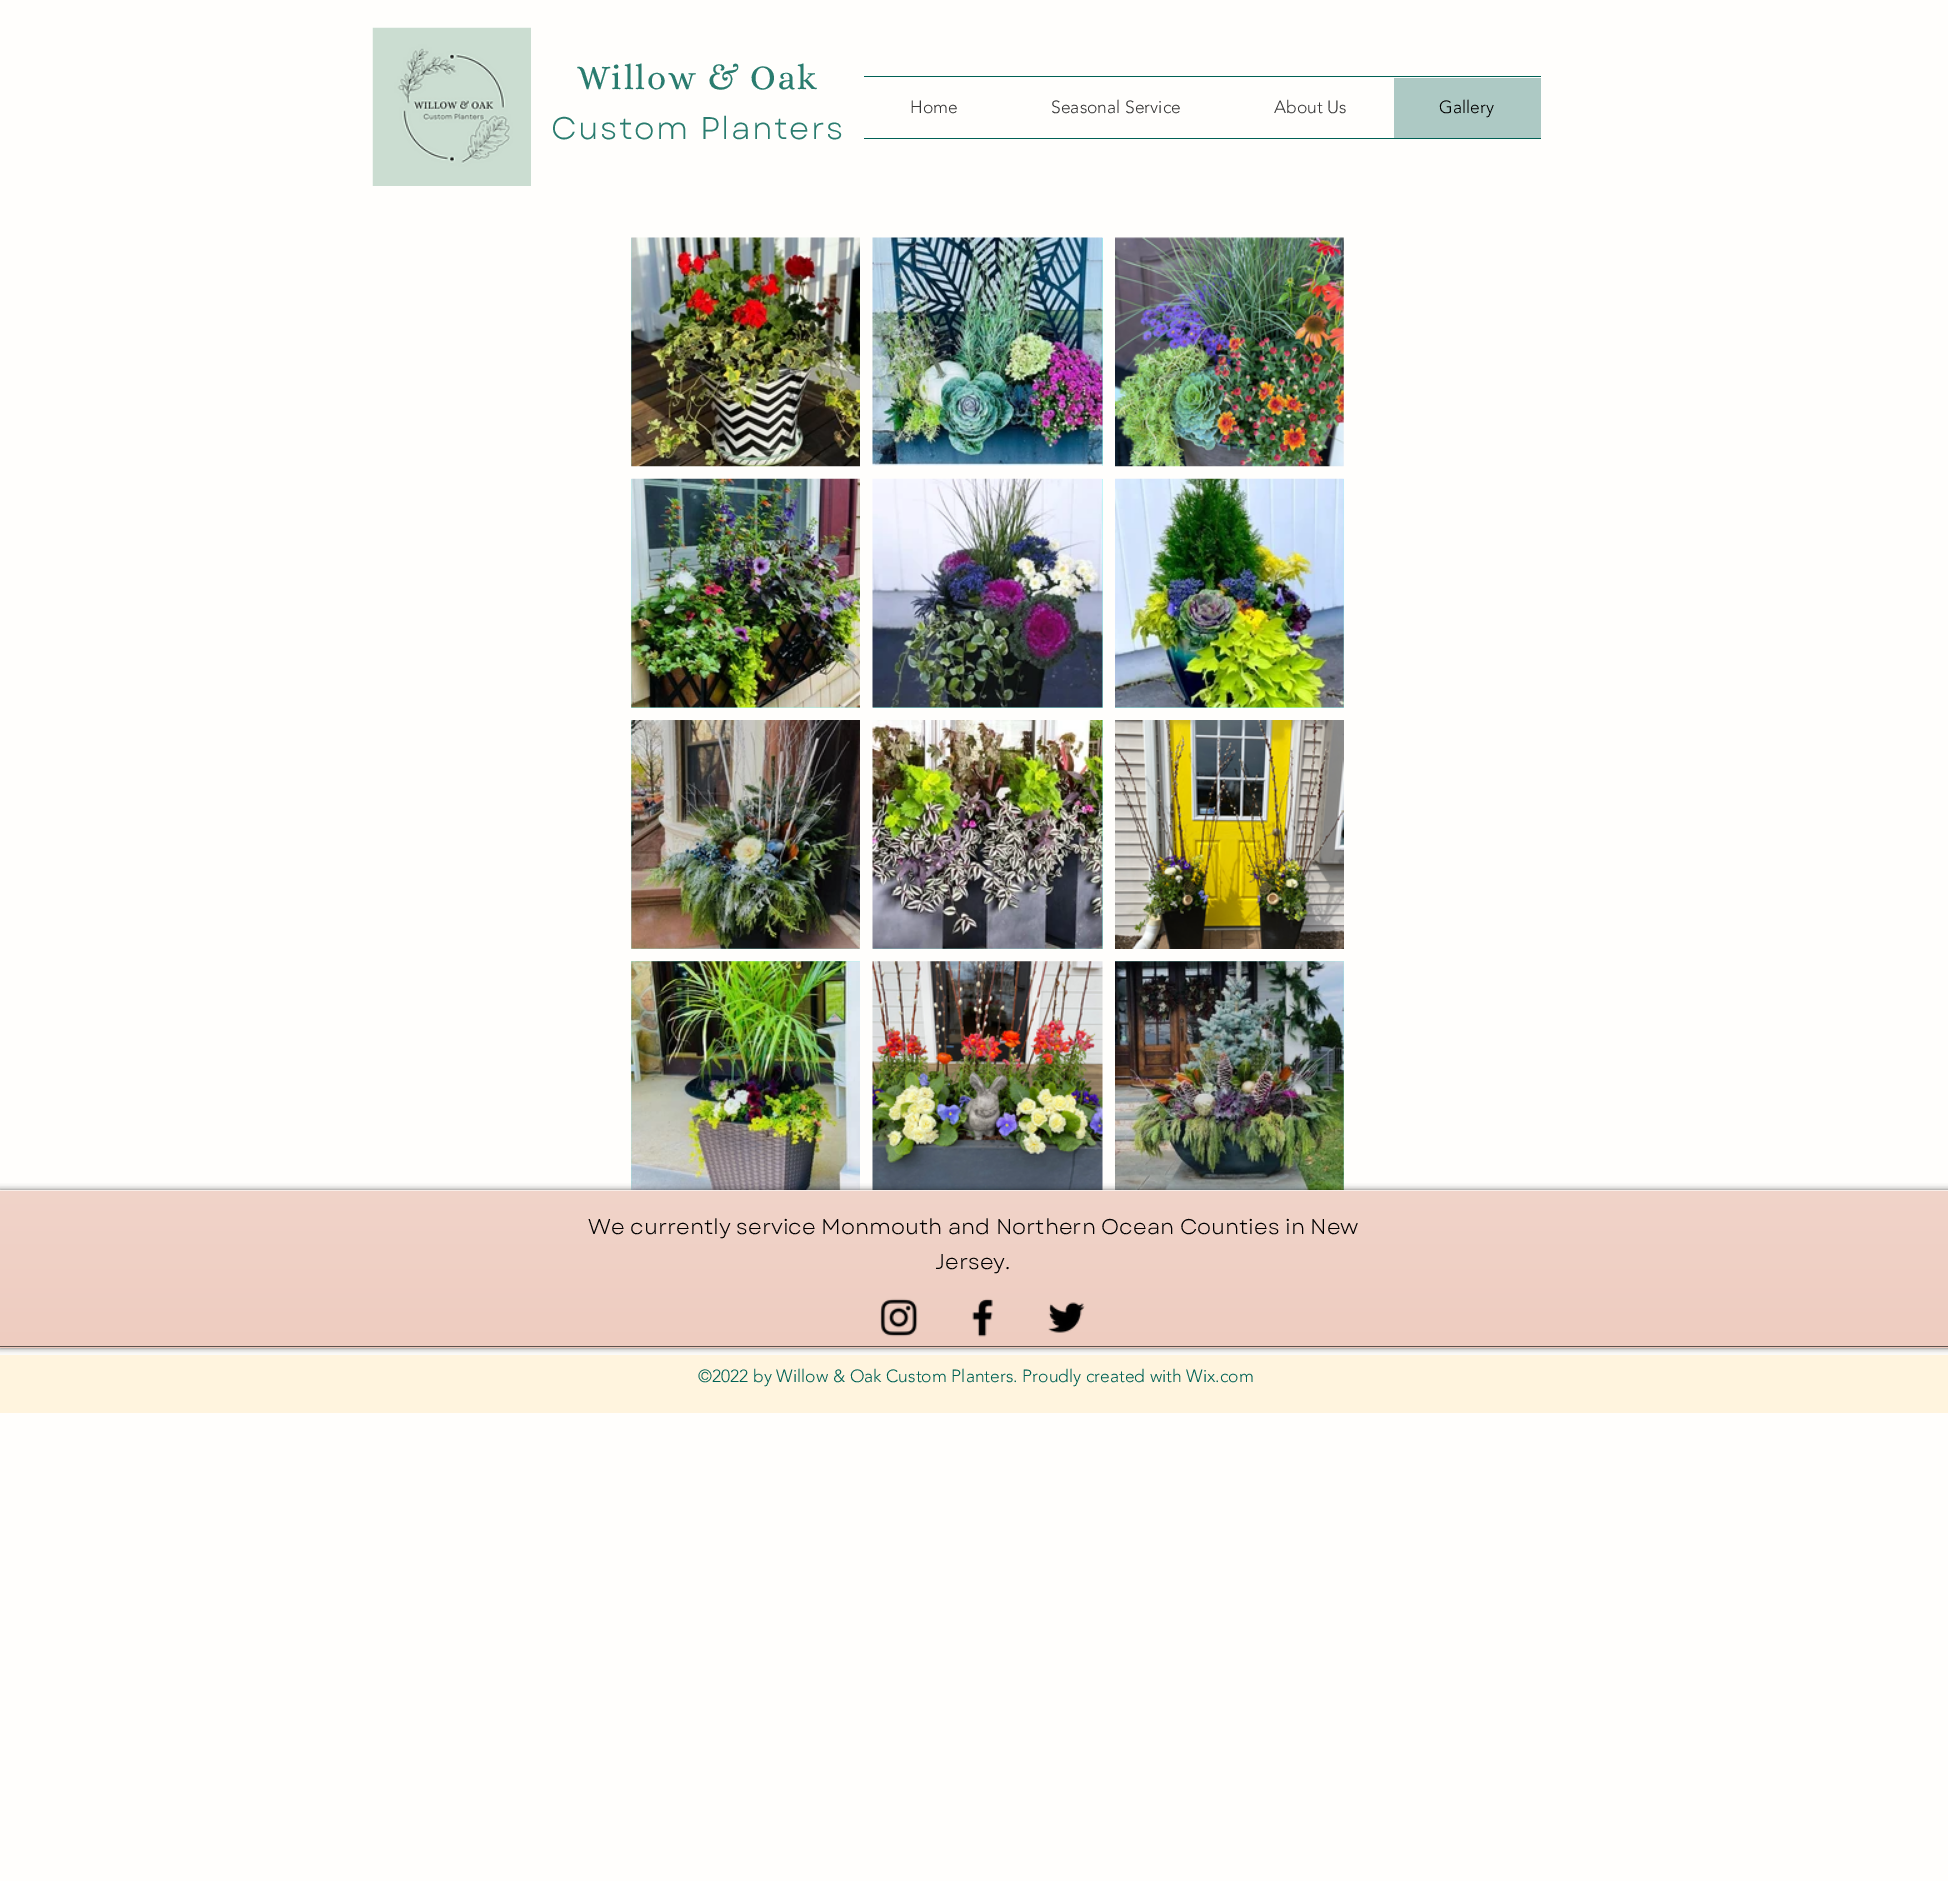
%!PS-Adobe-3.0
%%BoundingBox: 0 0 1948 1881
%%LanguageLevel: 3
%%Pages: 1
%%EndComments
%%BeginProlog
/m { moveto } bind def
/fn { [ exch dup neg 0 0 3 -1 roll 0 0 ] selectfont } def
/tx { moveto show } def
/bx { rectfill } def
/al { dup .setfillconstantalpha .setstrokeconstantalpha } def
/rr { 5 dict begin { /r /h /w /y /x } { exch def } forall
  x r add y moveto x w add y 2 copy h add r arct x w add y h add x 1 index r arct
  x y h add x y r arct x y 2 copy exch w add exch r arct closepath end } def
/sh { 12 dict begin { /a /b /q /h /w /y /x } { exch def } forall gsave /was 0 def
  9 -2 -9 { dup b mul 4 div /e exch def 1 sub .425 mul 2.718 exch exp 1 add a .99 .min exch div /now exch def
    1 1 now sub 1 was sub div sub al /was now def
    w h .min e 2 mul add 0 gt { x e sub y e sub w e 2 mul add h e 2 mul add
      q e add b .6 mul add w h .min 2 div e add .min 0 .max rr fill } if } for grestore end } def
/im { 5 dict begin { /h /w /y /x /name } { exch def } forall
  gsave x y translate w h scale
  w h 8 [w 0 0 h 0 0] name (r) file false 3 colorimage grestore end } def
%%EndProlog
%%BeginSetup
<< /PageSize [1948 1881] /PageUsesTransparency true >> setpagedevice
%%EndSetup
%%Page: 1 1
0 .pushpdf14devicefilter
0 1881 translate 1 -1 scale
4 setmiterlimit
1 0.996 0.988 setrgbcolor
0 0 1948 1881 bx
(image0.raw) 372 27 159 159 im
/Alice-Regular 35 fn
0.165 0.486 0.435 setrgbcolor
577 89 m 1.75 0 (Willow & Oak) ashow
/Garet-Regular 31.25 fn
551 139 m 1.5 0 (Custom Planters) ashow
0 0.38 0.333 setrgbcolor
864 76 677 1 bx
864 138 677 1 bx
/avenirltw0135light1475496-Light 17.5 fn
0.22 setgray
(Home) 910 113 tx
(Seasonal Service) 1051 113 tx
(About Us) 1274 113 tx
0.678 0.788 0.769 setrgbcolor
1394 78 147 60 bx
0 setgray
(Gallery) 1439 113 tx
(image1.raw) 631 237 229 230 im
0.588 1 0.949 setrgbcolor
1102 238 1 228 bx
(image2.raw) 872 237 231 229 im
(image3.raw) 1115 237 229 230 im
631 479 229 229 bx
(image4.raw) 631 478 229 230 im
873 479 230 229 bx
(image5.raw) 872 478 231 230 im
1115 479 229 229 bx
(image6.raw) 1115 478 229 230 im
631 720 229 229 bx
(image7.raw) 631 720 229 229 im
873 720 230 229 bx
(image8.raw) 872 720 231 229 im
(image9.raw) 1115 720 229 229 im
631 961 229 229 bx
(image10.raw) 631 961 229 229 im
(image11.raw) 872 961 231 229 im
1115 961 229 229 bx
(image12.raw) 1115 961 229 229 im
0 setgray
0 1190 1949 158 0 3 0.6 sh
0.922 0.769 0.714 setrgbcolor
0 1191 1948 157 bx
(image13.raw) 0 1191 1948 157 im
0.373 0.322 0.302 setrgbcolor
0 1346 1948 1 bx
0.976 0.933 0.914 setrgbcolor
0 1190 1948 1 bx
/Garet-Regular 21.25 fn
0 setgray
(We currently service Monmouth and Northern Ocean Counties in New) 588 1234 tx
(Jersey.) 935 1269 tx
(image14.raw) 880 1298 38 39 im
(image15.raw) 972 1298 21 39 im
(image16.raw) 1048 1302 37 31 im
1 0.957 0.871 setrgbcolor
0 1355 1948 58 bx
/avenirltw0135light1475496-Light 17.5 fn
0 0.38 0.333 setrgbcolor
(©2022 by Willow & Oak Custom Planters. Proudly created with Wix.com) 698 1382 tx
.poppdf14devicefilter showpage
%%EOF
